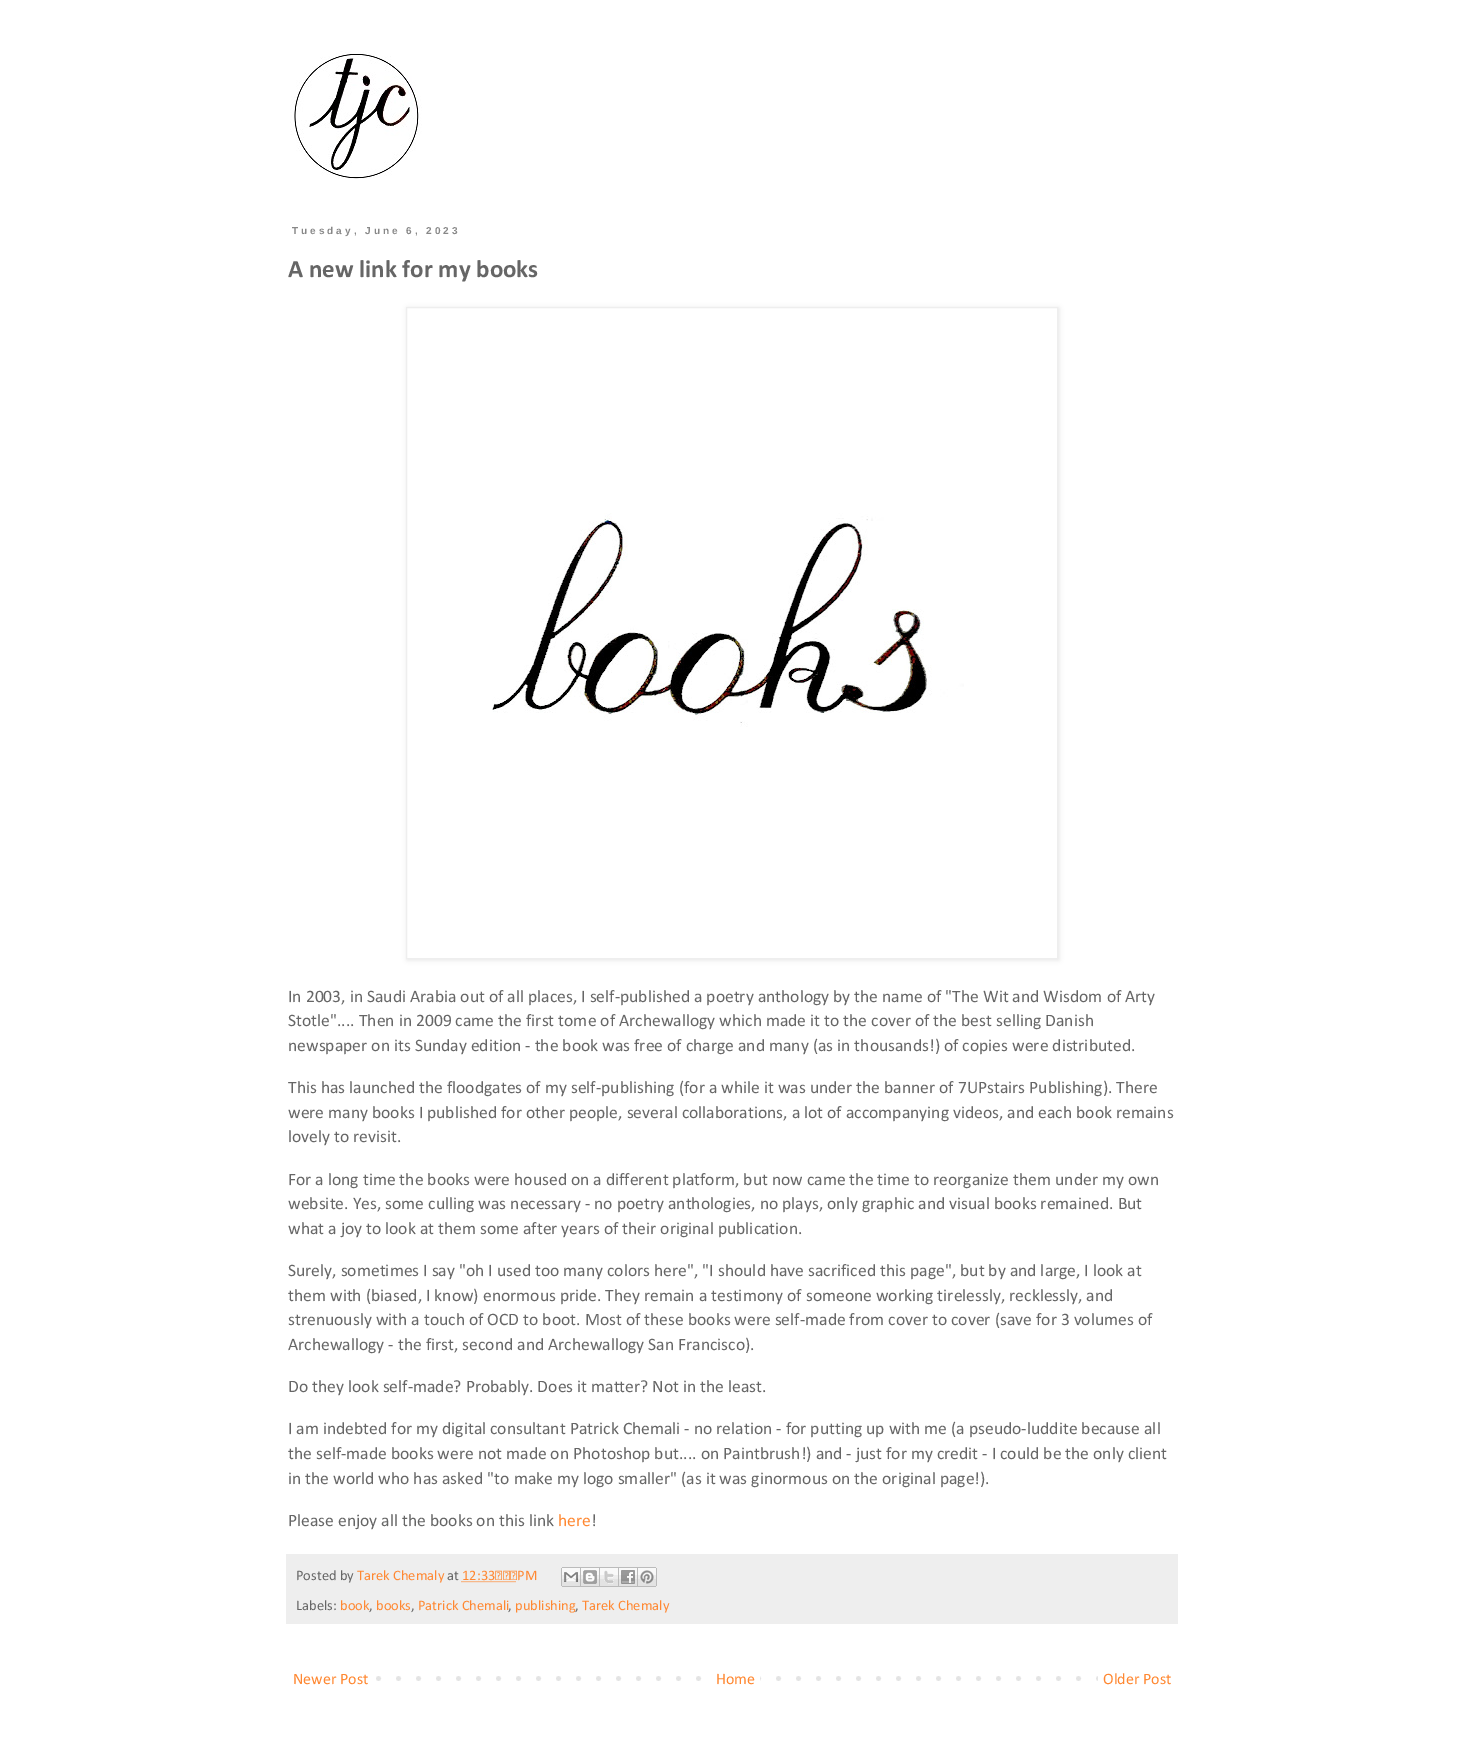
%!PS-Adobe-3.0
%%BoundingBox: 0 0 1464 1739
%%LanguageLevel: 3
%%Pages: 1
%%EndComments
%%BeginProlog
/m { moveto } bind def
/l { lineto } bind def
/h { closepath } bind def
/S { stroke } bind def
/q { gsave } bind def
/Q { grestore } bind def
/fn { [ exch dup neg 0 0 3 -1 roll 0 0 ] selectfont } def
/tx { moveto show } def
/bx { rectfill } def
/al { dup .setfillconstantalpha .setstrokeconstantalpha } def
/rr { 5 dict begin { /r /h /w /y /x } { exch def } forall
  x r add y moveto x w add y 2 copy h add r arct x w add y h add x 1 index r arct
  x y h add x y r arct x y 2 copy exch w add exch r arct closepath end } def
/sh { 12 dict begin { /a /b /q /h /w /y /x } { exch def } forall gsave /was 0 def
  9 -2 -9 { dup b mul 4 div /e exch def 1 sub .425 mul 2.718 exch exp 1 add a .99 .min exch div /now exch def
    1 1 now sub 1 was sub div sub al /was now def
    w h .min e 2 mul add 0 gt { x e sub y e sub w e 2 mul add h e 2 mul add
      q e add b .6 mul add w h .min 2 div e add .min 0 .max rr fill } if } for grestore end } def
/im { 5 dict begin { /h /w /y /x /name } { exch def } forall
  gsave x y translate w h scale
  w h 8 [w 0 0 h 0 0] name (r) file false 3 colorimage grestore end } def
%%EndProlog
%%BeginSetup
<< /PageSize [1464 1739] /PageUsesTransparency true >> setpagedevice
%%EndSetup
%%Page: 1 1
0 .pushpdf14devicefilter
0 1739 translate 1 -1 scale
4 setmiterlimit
1 setgray
0 0 1464 1739 bx
(image0.raw) 290 51 132 128 im
/LiberationSans-Bold 10 fn
0.533 setgray
292 234 m 3 0 (Tuesday, June 6, 2023) ashow
/Calibri-Bold 25 fn
0.4 setgray
(A new link for my books) 288 277 tx
q
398 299 m 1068 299 l 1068 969 l 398 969 l h 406 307 m 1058 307 l 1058 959 l 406 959 l h eoclip newpath
0 setgray
407 308 652 652 0 2.5 0.1 sh
Q
0.933 setgray
406.5 307.5 651 651 rectstroke
(image1.raw) 492 513 472 214 im
/Calibri-Regular 17.6 fn
0.4 setgray
(In 2003, in Saudi Arabia out of all places, I self-published a poetry anthology by the name of "The Wit and Wisdom of Arty) 288 1002 tx
(Stotle".... Then in 2009 came the first tome of Archewallogy which made it to the cover of the best selling Danish) 288 1026 tx
(newspaper on its Sunday edition - the book was free of charge and many \(as in thousands!\) of copies were distributed.) 288 1051 tx
(This has launched the floodgates of my self-publishing \(for a while it was under the banner of 7UPstairs Publishing\). There) 288 1093 tx
(were many books I published for other people, several collaborations, a lot of accompanying videos, and each book remains) 288 1118 tx
(lovely to revisit.) 288 1142 tx
(For a long time the books were housed on a different platform, but now came the time to reorganize them under my own) 288 1185 tx
(website. Yes, some culling was necessary - no poetry anthologies, no plays, only graphic and visual books remained. But) 288 1209 tx
(what a joy to look at them some after years of their original publication.) 288 1234 tx
(Surely, sometimes I say "oh I used too many colors here", "I should have sacrificed this page", but by and large, I look at) 288 1276 tx
(them with \(biased, I know\) enormous pride. They remain a testimony of someone working tirelessly, recklessly, and) 288 1301 tx
(strenuously with a touch of OCD to boot. Most of these books were self-made from cover to cover \(save for 3 volumes of) 288 1325 tx
(Archewallogy - the first, second and Archewallogy San Francisco\).) 288 1350 tx
(Do they look self-made? Probably. Does it matter? Not in the least.) 288 1392 tx
(I am indebted for my digital consultant Patrick Chemali - no relation - for putting up with me \(a pseudo-luddite because all) 288 1434 tx
(the self-made books were not made on Photoshop but.... on Paintbrush!\) and - just for my credit - I could be the only client) 288 1459 tx
(in the world who has asked "to make my logo smaller" \(as it was ginormous on the original page!\).) 288 1484 tx
(Please enjoy all the books on this link) 288 1526 tx
1 0.533 0.196 setrgbcolor
(here) 558 1526 tx
0.4 setgray
(!) 591 1526 tx
0.933 setgray
286 1554 892 70 bx
/Calibri-Regular 14.5 fn
0.4 setgray
(Posted by) 296 1580 tx
1 0.533 0.196 setrgbcolor
(Tarek Chemaly) 357 1580 tx
0.4 setgray
(at) 447 1580 tx
1 0.533 0.196 setrgbcolor
(12:33 PM) 462 1580 tx
[1 1] 0 setdash
461.5 1581.5 m 516 1581.5 l S
(image2.raw) 561 1567 20 20 im
(image3.raw) 581 1567 19 20 im
(image4.raw) 600 1567 19 20 im
(image5.raw) 619 1567 19 20 im
(image6.raw) 638 1567 19 20 im
0.4 setgray
(Labels:) 296 1610 tx
1 0.533 0.196 setrgbcolor
(book) 340 1610 tx
0.4 setgray
(,) 369 1610 tx
1 0.533 0.196 setrgbcolor
(books) 376 1610 tx
0.4 setgray
(,) 411 1610 tx
1 0.533 0.196 setrgbcolor
(Patrick Chemali) 418 1610 tx
0.4 setgray
(,) 508 1610 tx
1 0.533 0.196 setrgbcolor
(publishing) 515 1610 tx
0.4 setgray
(,) 575 1610 tx
1 0.533 0.196 setrgbcolor
(Tarek Chemaly) 582 1610 tx
(image7.raw) 376 1676 722 5 im
/Calibri-Regular 16 fn
(Newer Post) 293 1684 tx
1 setgray
716 1676 44 5 bx
1 0.533 0.196 setrgbcolor
(Home) 716 1684 tx
(Older Post) 1103 1684 tx
.poppdf14devicefilter showpage
%%EOF
